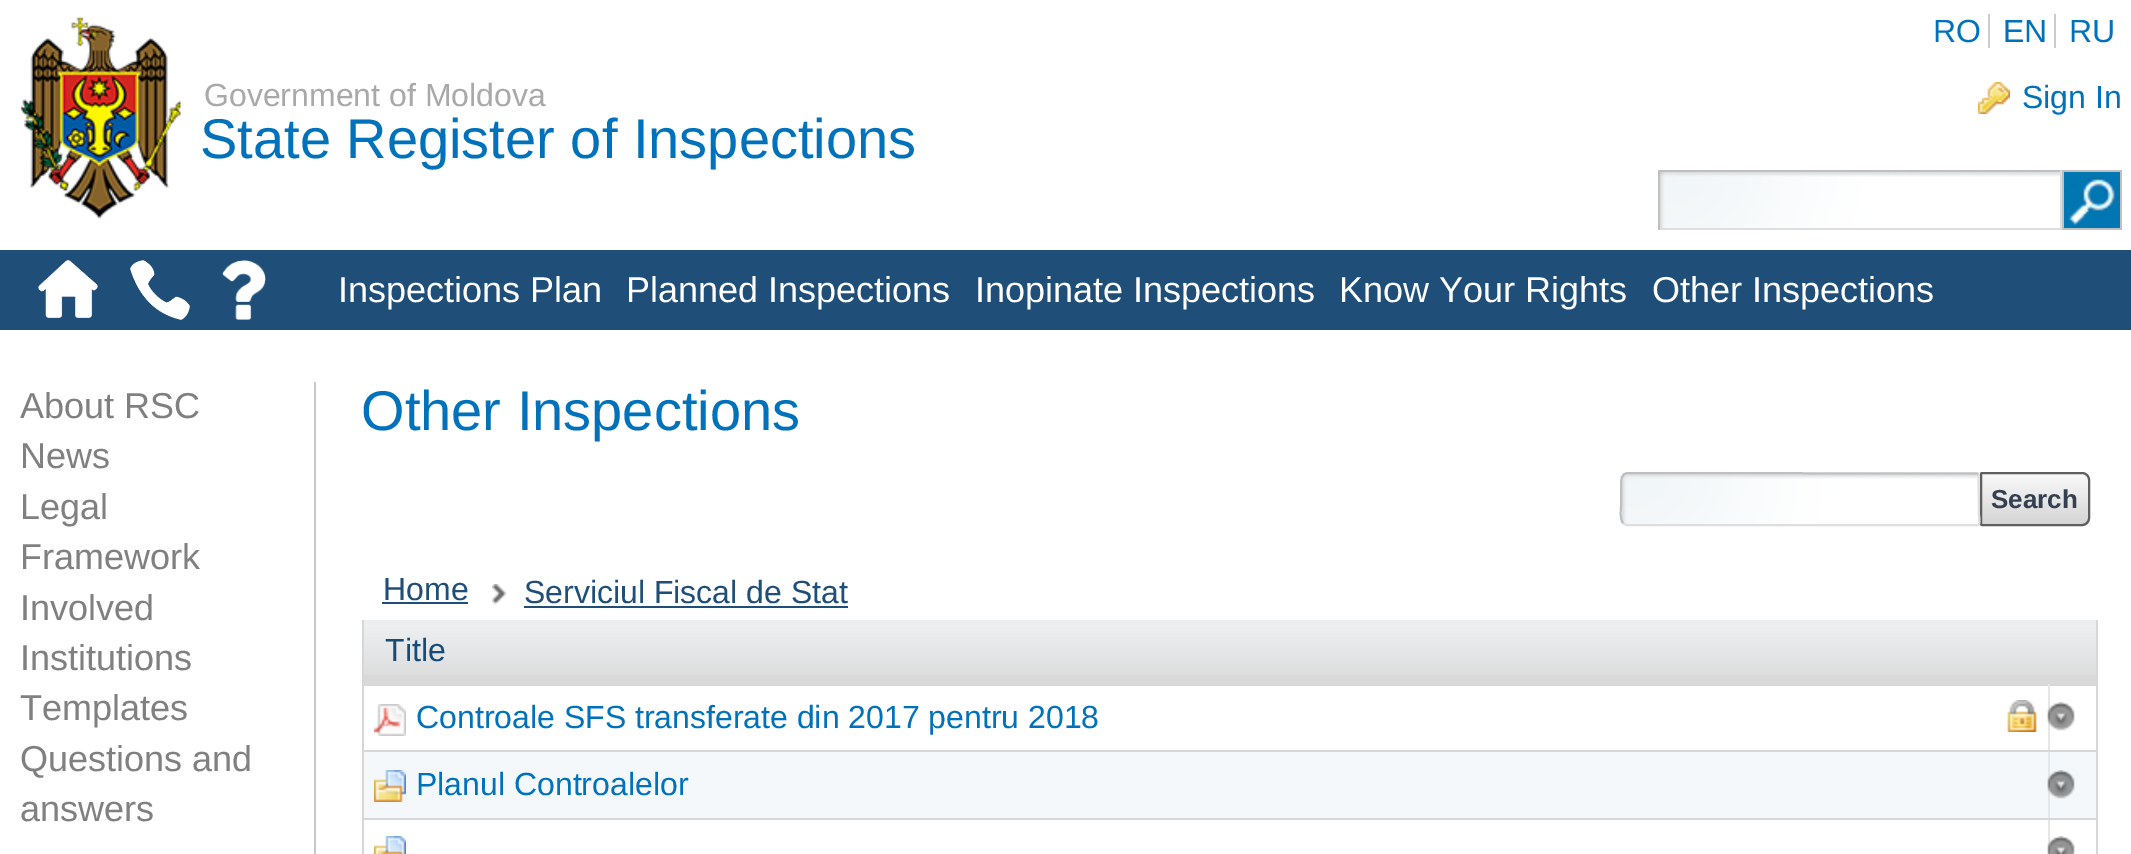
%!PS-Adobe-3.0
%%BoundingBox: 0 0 2131 854
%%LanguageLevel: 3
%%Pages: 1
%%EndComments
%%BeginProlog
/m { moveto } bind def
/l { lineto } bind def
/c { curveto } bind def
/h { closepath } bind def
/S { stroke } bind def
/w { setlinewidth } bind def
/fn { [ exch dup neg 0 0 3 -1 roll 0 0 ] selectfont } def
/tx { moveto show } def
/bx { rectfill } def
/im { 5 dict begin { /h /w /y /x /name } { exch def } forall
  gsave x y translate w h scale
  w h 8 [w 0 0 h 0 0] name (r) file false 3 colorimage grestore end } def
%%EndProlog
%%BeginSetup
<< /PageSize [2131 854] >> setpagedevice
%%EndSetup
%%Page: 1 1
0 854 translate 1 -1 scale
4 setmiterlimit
1 setgray
0 0 2131 854 bx
/LiberationSans-Regular 32 fn
0 0.447 0.733 setrgbcolor
(RO) 1933 42 tx
0.8 setgray
1988 14 2 34 bx
0 0.447 0.733 setrgbcolor
(EN) 2003 42 tx
0.8 setgray
2054 14 2 34 bx
0 0.447 0.733 setrgbcolor
(RU) 2069 42 tx
/LiberationSans-Regular 36 fn
0.502 setgray
(About RSC) 20 418 tx
0.784 setgray
314 382 2 472 bx
0.502 setgray
(News) 20 468 tx
(Legal) 20 519 tx
(Framework) 20 569 tx
(Involved) 20 620 tx
(Institutions) 20 670 tx
(Templates) 20 720 tx
(Questions and) 20 771 tx
(answers) 20 821 tx
/LiberationSans-Regular 56 fn
0 0.447 0.733 setrgbcolor
(Other Inspections) 361 430 tx
(image0.raw) 1622 474 358 52 im
(image1.raw) 1980 474 110 52 im
0.373 setgray
2 w
1982 473 m 2082 473 l 2086 473 2089 476 2089 480 c 2089 518 l 2089 522 2086 525 2082 525 c 1982 525 l 1981.5 525 1981 524.5 1981 524 c 1981 474 l 1981 473.5 1981.5 473 1982 473 c h S
0.871 setgray
1978.5 473.5 m 1979 515.5 l 1979 516 1980.5 525 1978 525 c 1628 525 l 1626 525 1624.5 524.5 1623 523 c S
0.749 setgray
1623 523 m 1619.5 519 1621 509.5 1621 505.5 c 1621 486.5 l 1621 481 1620.5 473 1628 473 c 1978.5 473.5 l S
/LiberationSans-Bold 26 fn
0.204 0.251 0.31 setrgbcolor
(Search) 1991 508 tx
(image2.raw) 492 584 15 21 im
/LiberationSans-Regular 32 fn
0.122 0.306 0.475 setrgbcolor
(Home) 383 600 tx
382 602 86 2 bx
(Serviciul Fiscal de Stat) 524 603 tx
524 606 324 2 bx
0.843 setgray
2096 620 2 234 bx
362 620 2 234 bx
0.851 setgray
364 675 1732 9 bx
(image3.raw) 364 620 1686 55 im
0.082 0.294 0.459 setrgbcolor
(Title) 385 661 tx
(image4.raw) 2050 620 46 55 im
0.843 setgray
364 684 1734 2 bx
0.906 setgray
2048 818 2 36 bx
0.843 setgray
2048 818 50 2 bx
0.906 setgray
2048 750 2 70 bx
0.843 setgray
2048 750 50 2 bx
0.906 setgray
2048 684 2 68 bx
(image5.raw) 2047 702 28 29 im
0.843 setgray
364 750 1686 2 bx
(image6.raw) 374 704 32 32 im
0 0.447 0.733 setrgbcolor
(Controale SFS transferate din 2017 pentru 2018) 416 728 tx
(image7.raw) 2007 700 30 32 im
0.961 0.973 0.984 setrgbcolor
364 752 1684 66 bx
0.843 setgray
364 818 1686 2 bx
(image8.raw) 374 770 32 32 im
0 0.447 0.733 setrgbcolor
(Planul Controalelor) 416 795 tx
0.961 0.973 0.984 setrgbcolor
2050 752 46 66 bx
(image9.raw) 2047 770 28 29 im
(image10.raw) 374 836 32 18 im
(image11.raw) 2047 836 28 18 im
0.122 0.306 0.475 setrgbcolor
0 250 2131 80 bx
(image12.raw) 38 260 60 58 im
(image13.raw) 130 260 60 60 im
(image14.raw) 222 260 44 60 im
/LiberationSans-Regular 36 fn
1 setgray
(Inspections Plan) 338 302 tx
(Planned Inspections) 626 302 tx
(Inopinate Inspections) 975 302 tx
(Know Your Rights) 1339 302 tx
(Other Inspections) 1652 302 tx
(image15.raw) 20 17 161 202 im
/LiberationSans-Regular 32 fn
0.663 setgray
(Government of Moldova) 204 106 tx
/LiberationSans-Regular 56 fn
0 0.447 0.733 setrgbcolor
(State Register of Inspections) 200 158 tx
(image16.raw) 1660 172 400 56 im
0.749 setgray
1658 170 404 2 bx
0.871 setgray
2060 170 2 60 bx
1658 228 404 2 bx
0.749 setgray
1658 170 2 60 bx
(image17.raw) 2062 170 60 60 im
(image18.raw) 1978 82 32 32 im
/LiberationSans-Regular 32 fn
0 0.447 0.733 setrgbcolor
(Sign In) 2022 108 tx
showpage
%%EOF
